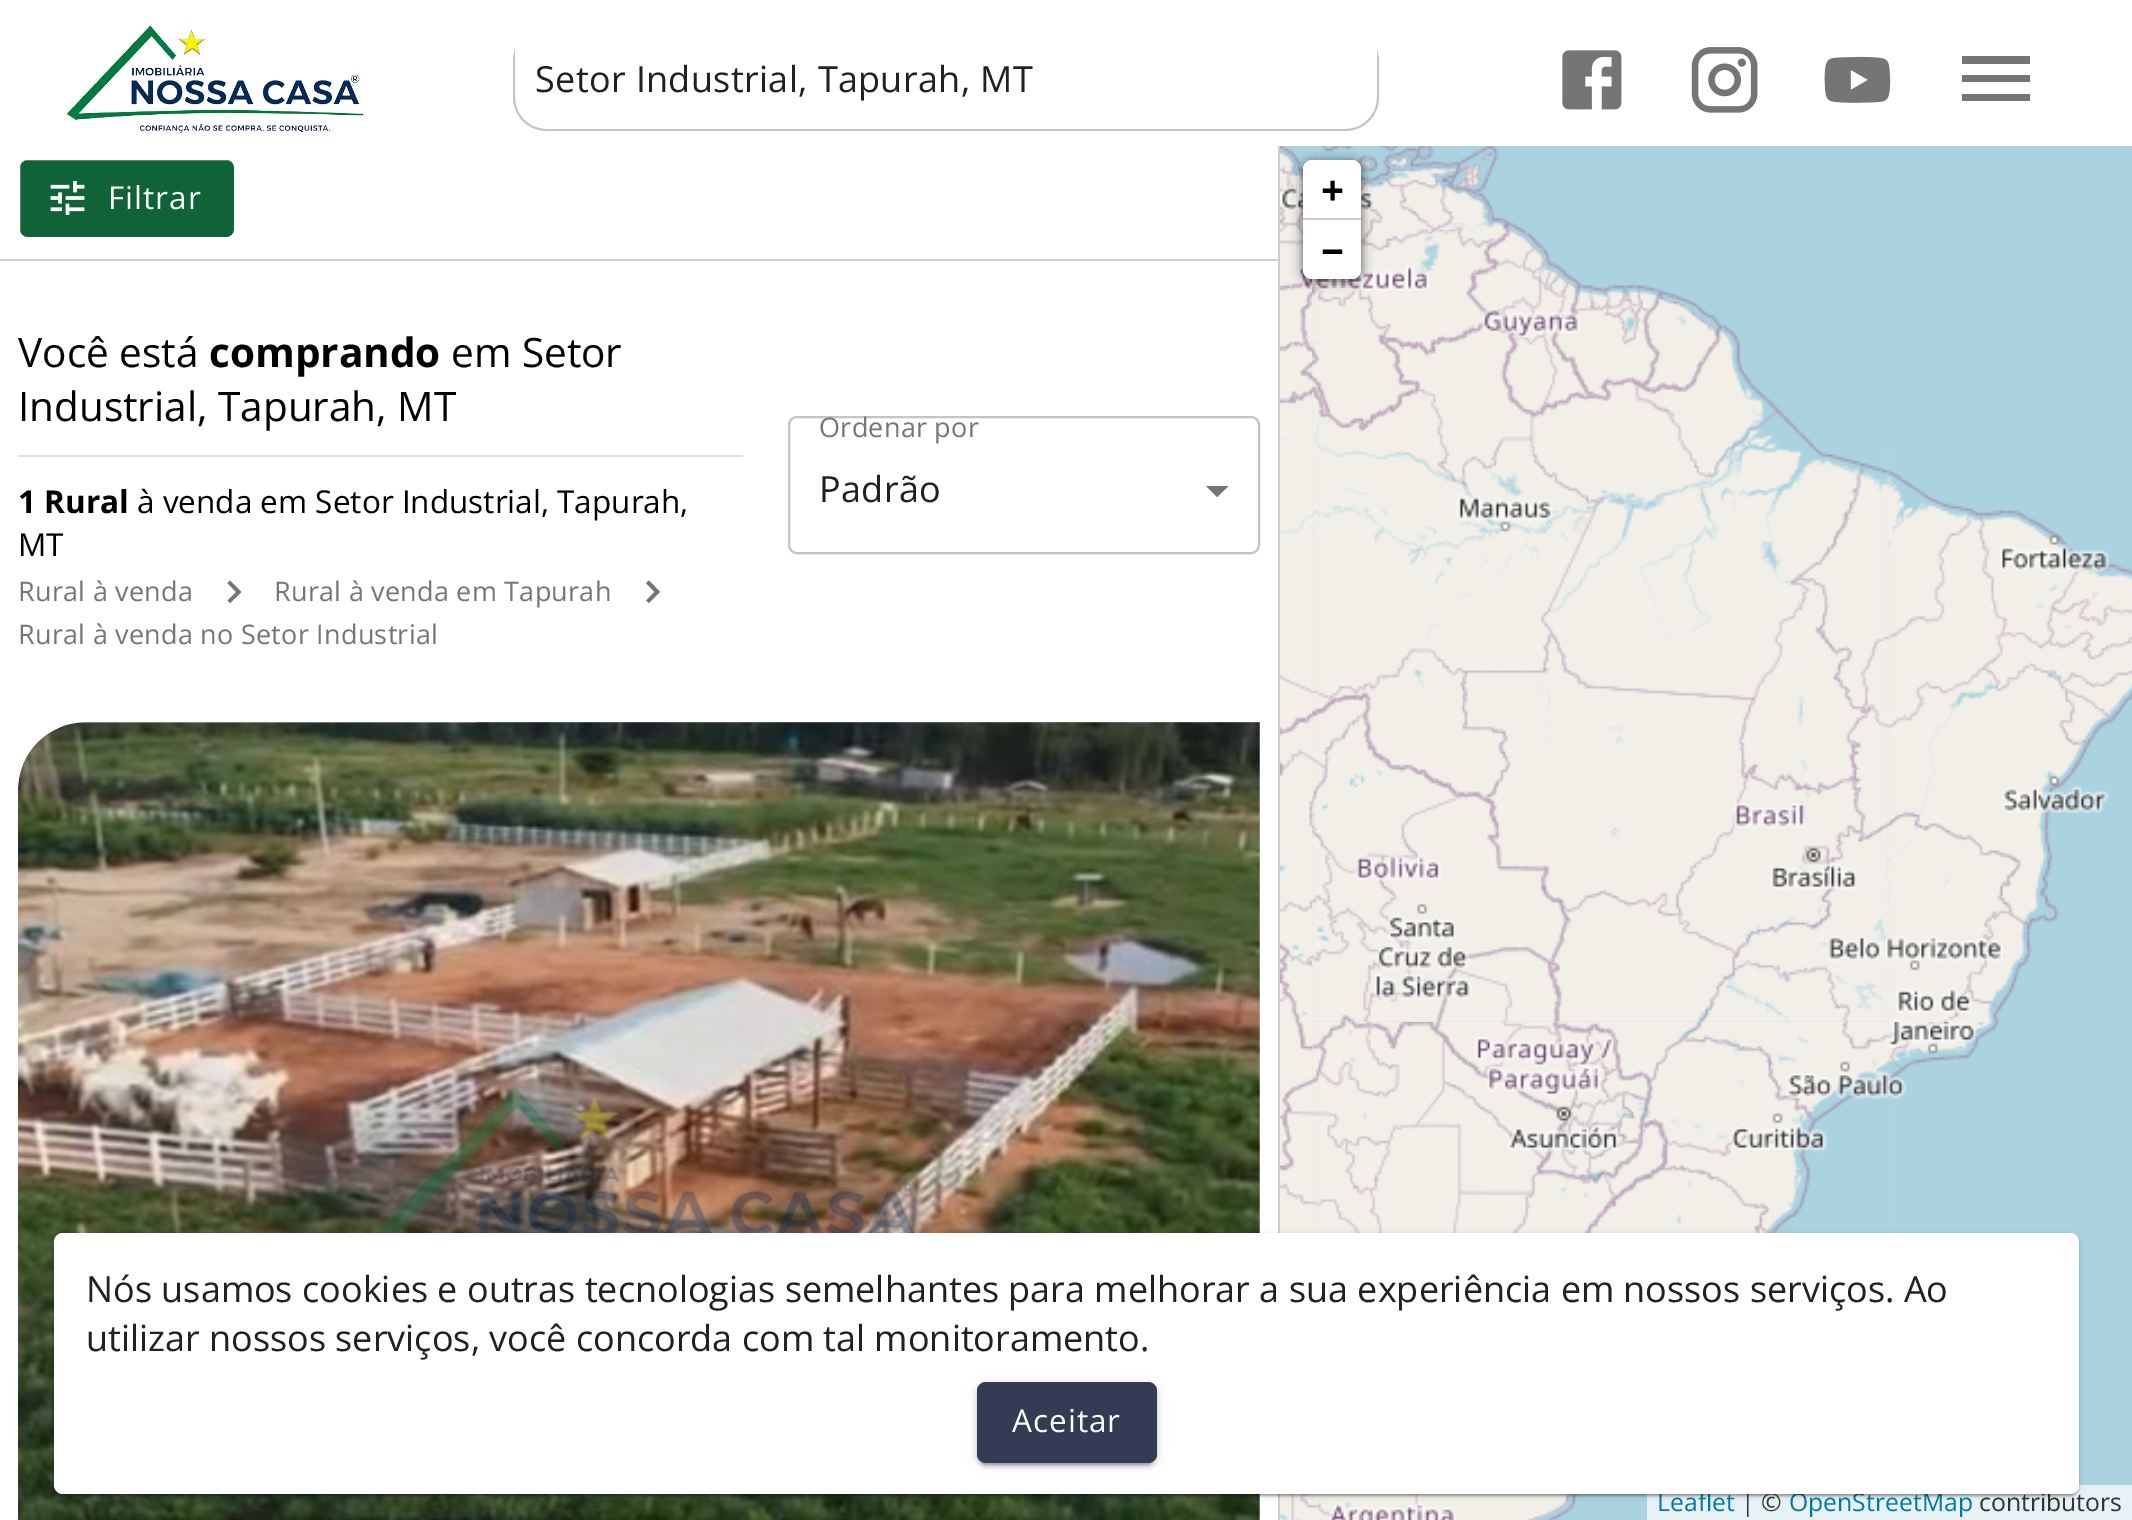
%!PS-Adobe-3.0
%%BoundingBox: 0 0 2132 1520
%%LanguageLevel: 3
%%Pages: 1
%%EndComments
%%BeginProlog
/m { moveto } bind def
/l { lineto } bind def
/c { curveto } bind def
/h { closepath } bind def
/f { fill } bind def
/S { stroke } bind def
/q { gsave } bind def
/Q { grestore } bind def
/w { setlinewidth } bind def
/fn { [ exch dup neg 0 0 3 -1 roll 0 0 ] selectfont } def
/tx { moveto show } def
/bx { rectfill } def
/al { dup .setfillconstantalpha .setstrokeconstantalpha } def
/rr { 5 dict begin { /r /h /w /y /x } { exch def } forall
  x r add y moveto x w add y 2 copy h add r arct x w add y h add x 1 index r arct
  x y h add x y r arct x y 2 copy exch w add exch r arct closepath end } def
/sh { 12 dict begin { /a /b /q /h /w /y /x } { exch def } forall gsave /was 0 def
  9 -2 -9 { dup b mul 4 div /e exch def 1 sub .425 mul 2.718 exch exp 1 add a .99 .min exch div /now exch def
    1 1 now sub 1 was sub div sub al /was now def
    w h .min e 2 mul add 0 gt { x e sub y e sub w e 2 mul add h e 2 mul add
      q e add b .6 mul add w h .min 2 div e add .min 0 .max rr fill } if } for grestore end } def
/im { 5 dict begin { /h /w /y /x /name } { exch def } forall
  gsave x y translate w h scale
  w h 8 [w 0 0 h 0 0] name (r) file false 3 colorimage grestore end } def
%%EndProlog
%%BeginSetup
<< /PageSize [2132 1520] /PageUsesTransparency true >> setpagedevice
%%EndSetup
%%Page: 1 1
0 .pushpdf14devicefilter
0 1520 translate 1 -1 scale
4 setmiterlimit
1 setgray
0 0 2132 1520 bx
(image0.raw) 66 25 298 108 im
/OpenSans-Regular 36 fn
0.129 setgray
535 92 m 0.35 0 (Setor Industrial, Tapurah, MT) ashow
0.769 setgray
513 61 m 513 97 l 513 116 528 131 547 131 c 1345 131 l 1364 131 1379 116 1379 97 c 1379 61 l 1379 57 1378 53 1377 49 c 1377 97 l 1377 115 1363 129 1345 129 c 547 129 l 529 129 515 115 515 97 c 515 49 l 514 53 513 57 513 61 c h f
(image1.raw) 1562 50 60 60 im
(image2.raw) 1691 47 67 66 im
(image3.raw) 1824 56 67 47 im
0.459 setgray
1962 101 m 2030 101 l 2030 94 l 1962 94 l h 1962 82 m 2030 82 l 2030 75 l 1962 75 l h 1962 56 m 1962 64 l 2030 64 l 2030 56 l h f
0.808 setgray
1278 146 2 1374 bx
0 259 1278 2 bx
0.059 0.388 0.216 setrgbcolor
19 159 216 79 8 rr q f Q
1 setgray
2 w
S
(image4.raw) 50 181 35 34 im
/OpenSans-Regular 31.5 fn
108 209 m 1 0 (Filtrar) ashow
/OpenSans-Regular 40.5 fn
0 setgray
(Você está) 18 367 tx
/OpenSans-Bold 40.5 fn
(comprando) 209 367 tx
/OpenSans-Regular 40.5 fn
(em Setor) 451 367 tx
(Industrial, Tapurah, MT) 18 421 tx
0.878 setgray
18 455 725 2 bx
/OpenSans-Bold 31.5 fn
0 setgray
(1 Rural) 18 513 tx
/OpenSans-Regular 31.5 fn
(à venda em Setor Industrial, Tapurah,) 137 513 tx
(MT) 18 556 tx
/OpenSans-Regular 27 fn
0.459 setgray
18 601 m 0.25 0 (Rural à venda) ashow
230 580.5 m 227.5 583 l 236 592 l 227.5 600.5 l 230 603 l 241.5 592 l h f
274 601 m 0.25 0 (Rural à venda em Tapurah) ashow
649 580.5 m 646 583 l 654.5 592 l 646 600.5 l 649 603 l 660 592 l h f
18 644 m 0.25 0 (Rural à venda no Setor Industrial) ashow
1206 486 m 1217 497 l 1228.5 486 l h f
0.769 setgray
789 417 470 136 8 rr S
0.459 setgray
819 437 m 0.25 0 (Ordenar por) ashow
/OpenSans-Regular 36 fn
0.129 setgray
819 502 m 0.35 0 (Padrão) ashow
0.843 setgray
86 722 m 1260 722 l 1260 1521 l 18 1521 l 18 790 l 18 752.5 48.5 722 86 722 c h f
(image5.raw) 18 722 1242 798 im
0.867 setgray
1312 146 577 1374 bx
(image6.raw) 1280 146 32 300 im
(image9.raw) 1312 445 576 577 im
(image7.raw) 1312 146 576 300 im
0.667 0.827 0.875 setrgbcolor
1888 146 244 300 bx
(image8.raw) 1280 446 32 576 im
(image10.raw) 1887 446 245 576 im
(image11.raw) 1280 1022 32 498 im
(image12.raw) 1312 1022 576 498 im
(image13.raw) 1887 1022 245 498 im
0 setgray
1303 162 58 119 9 5.5 0.65 sh
1 setgray
1312 160 m 1352 160 l 1357 160 1361 164 1361 169 c 1361 221 l 1303 221 l 1303 169 l 1303 164 1307 160 1312 160 c h f
0.8 setgray
1303 218 58 2 bx
/OpenSans-Bold 40.5 fn
0 setgray
(+) 1321 205 tx
1 setgray
1303 221 m 1361 221 l 1361 270 l 1361 275 1357 279 1352 279 c 1312 279 l 1307 279 1303 275 1303 270 c h f
0 setgray
(−) 1321 266 tx
0.7 al
1 setgray
1647 1485 485 35 bx
/OpenSans-Regular 24.75 fn
1 al
0 0.471 0.659 setrgbcolor
(Leaflet) 1657 1511 tx
0.2 setgray
(| ©) 1741 1511 tx
0 0.471 0.659 setrgbcolor
(OpenStreetMap) 1789 1511 tx
0.2 setgray
(contributors) 1979 1511 tx
0 setgray
54 1235 2025 261 9 3.5 0.12 sh
54 1235 2025 261 9 1 0.14 sh
56 1240 2021 256 7 1 0.2 sh
54 1343 126 126 63 20 0.12 sh
54 1355 126 126 63 11 0.14 sh
56 1350 122 122 61 5.5 0.2 sh
1 setgray
54 1233 2025 261 9 rr f
/OpenSans-Regular 36 fn
0.129 setgray
(Nós usamos cookies e outras tecnologias semelhantes para melhorar a sua experiência em nossos serviços. Ao) 86 1302 tx
(utilizar nossos serviços, você concorda com tal monitoramento.) 86 1351 tx
0 setgray
977 1384 180 81 9 5.5 0.12 sh
977 1386 180 81 9 2 0.14 sh
981 1393 171 72 5 1 0.2 sh
0.2 0.231 0.333 setrgbcolor
977 1382 180 81 9 rr f
/OpenSans-Regular 31.5 fn
1 setgray
1012 1432 m 1 0 (Aceitar) ashow
0 setgray
52 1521 625 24 11 4.5 0.4 sh
52 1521 1012 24 11 4.5 0.4 sh
.poppdf14devicefilter showpage
%%EOF
